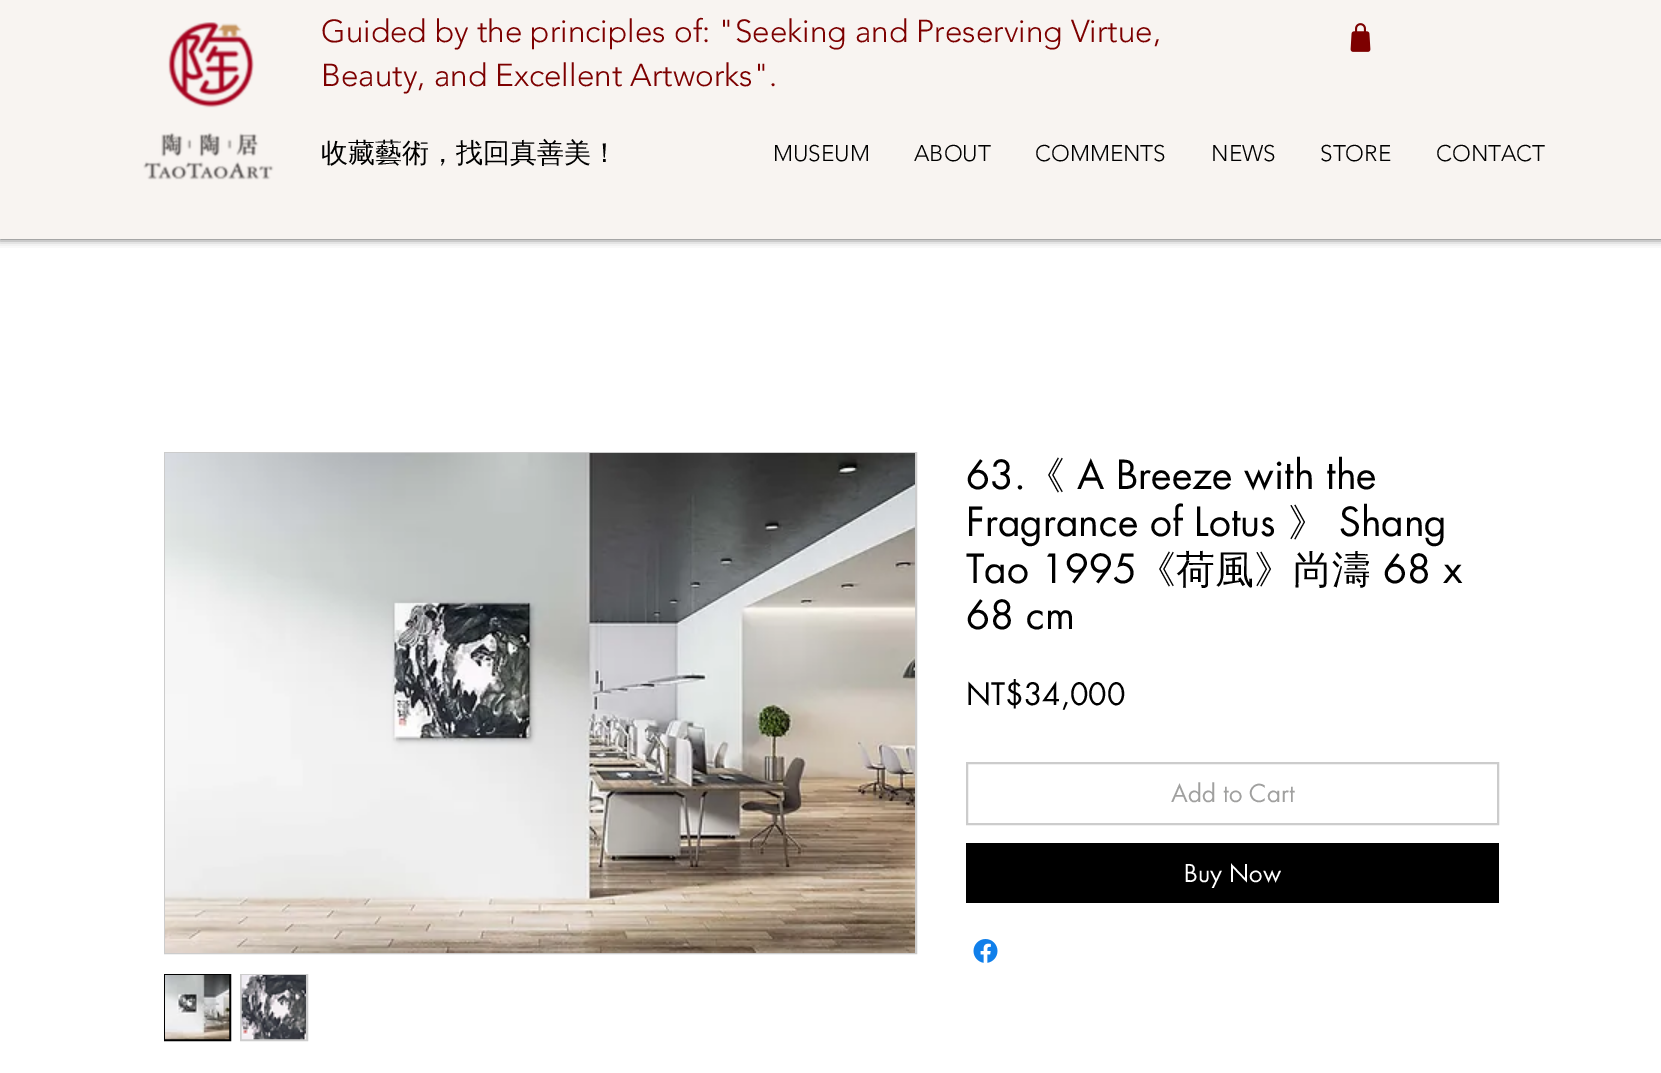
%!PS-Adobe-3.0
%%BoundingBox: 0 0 1661 1073
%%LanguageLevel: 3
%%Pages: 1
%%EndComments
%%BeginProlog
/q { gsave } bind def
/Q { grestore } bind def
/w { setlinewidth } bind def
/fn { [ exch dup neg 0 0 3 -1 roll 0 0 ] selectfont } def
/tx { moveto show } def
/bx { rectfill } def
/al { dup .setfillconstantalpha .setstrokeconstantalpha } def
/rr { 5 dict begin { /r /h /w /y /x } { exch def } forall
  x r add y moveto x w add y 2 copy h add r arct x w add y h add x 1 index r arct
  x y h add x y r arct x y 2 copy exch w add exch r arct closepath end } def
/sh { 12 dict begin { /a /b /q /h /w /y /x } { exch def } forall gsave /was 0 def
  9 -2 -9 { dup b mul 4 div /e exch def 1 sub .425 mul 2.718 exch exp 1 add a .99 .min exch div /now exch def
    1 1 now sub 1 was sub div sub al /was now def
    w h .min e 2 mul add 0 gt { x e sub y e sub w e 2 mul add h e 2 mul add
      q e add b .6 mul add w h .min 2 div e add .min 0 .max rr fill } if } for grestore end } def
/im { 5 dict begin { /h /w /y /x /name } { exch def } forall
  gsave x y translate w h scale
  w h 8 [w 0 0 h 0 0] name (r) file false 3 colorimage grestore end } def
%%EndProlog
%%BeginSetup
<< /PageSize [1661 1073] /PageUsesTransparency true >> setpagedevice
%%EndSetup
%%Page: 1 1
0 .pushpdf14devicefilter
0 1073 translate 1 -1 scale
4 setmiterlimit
1 setgray
0 0 1661 1073 bx
0 setgray
0 0 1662 239 0 4 0.7 sh
0.973 0.957 0.945 setrgbcolor
0 0 1661 239 bx
(image0.raw) 168 22 86 86 im
/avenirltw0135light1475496-Light 31.5 fn
0.49 0 0 setrgbcolor
(Guided by the principles of: "Seeking and Preserving Virtue,) 321 42 tx
(Beauty, and Excellent Artworks".) 321 86 tx
(image1.raw) 1350 23 21 29 im
(image2.raw) 143 132 131 48 im
/WenQuanYiZenHei-Medium 27 fn
0 setgray
(收藏藝術，找回真善美！) 321 162 tx
/avenirltw0135light1475496-Light 22.5 fn
(MUSEUM) 773 161 tx
(ABOUT) 914 161 tx
(COMMENTS) 1035 161 tx
(NEWS) 1211 161 tx
(STORE) 1320 161 tx
(CONTACT) 1436 161 tx
0.8 setgray
2 w
165 453 751 500 rectstroke
(image3.raw) 165 453 750 500 im
0 setgray
165 975 65 65 rectstroke
(image4.raw) 165 975 65 65 im
0.8 setgray
241 975 66 65 rectstroke
(image5.raw) 241 975 65 65 im
/futura-Regular 39 fn
0 setgray
(63.) 966 489 tx
/WenQuanYiZenHei-Medium 39 fn
(《) 1026 489 tx
/futura-Regular 39 fn
(A Breeze with the) 1077 489 tx
(Fragrance of Lotus) 966 536 tx
/WenQuanYiZenHei-Medium 39 fn
(》) 1288 536 tx
/futura-Regular 39 fn
(Shang) 1339 536 tx
(Tao 1995) 966 583 tx
/WenQuanYiZenHei-Medium 39 fn
(《荷風》尚濤) 1137 583 tx
/futura-Regular 39 fn
(68 x) 1383 583 tx
(68 cm) 966 629 tx
/futura-Regular 30 fn
(NT$34,000) 966 705 tx
0.8 setgray
967 763 531 61 rectstroke
/futura-Regular 24 fn
0.627 0.627 0.624 setrgbcolor
(Add to Cart) 1171 802 tx
0 setgray
966 843 533 60 bx
q
1184 858 97 30 rectclip
1 setgray
(Buy Now) 1184 882 tx
Q
(image6.raw) 973 939 25 24 im
.poppdf14devicefilter showpage
%%EOF
